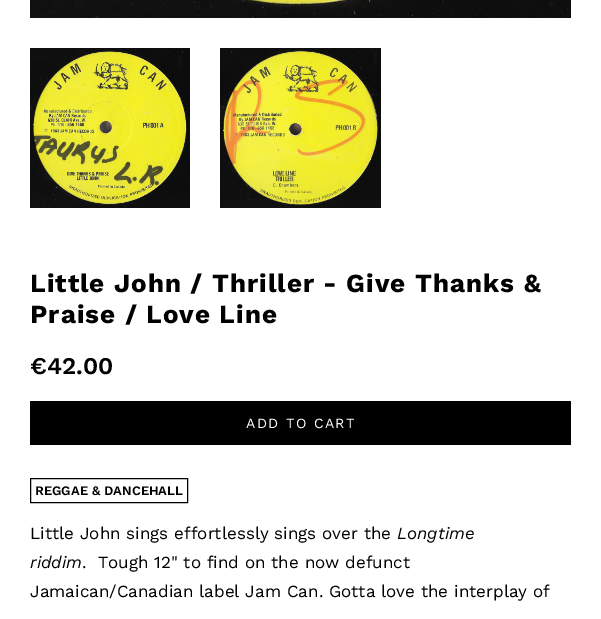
%!PS-Adobe-3.0
%%BoundingBox: 0 0 601 619
%%LanguageLevel: 3
%%Pages: 1
%%EndComments
%%BeginProlog
/m { moveto } bind def
/fn { [ exch dup neg 0 0 3 -1 roll 0 0 ] selectfont } def
/tx { moveto show } def
/bx { rectfill } def
/im { 5 dict begin { /h /w /y /x /name } { exch def } forall
  gsave x y translate w h scale
  w h 8 [w 0 0 h 0 0] name (r) file false 3 colorimage grestore end } def
%%EndProlog
%%BeginSetup
<< /PageSize [601 619] >> setpagedevice
%%EndSetup
%%Page: 1 1
0 619 translate 1 -1 scale
4 setmiterlimit
1 setgray
0 0 601 619 bx
(image0.raw) 30 0 541 18 im
(image1.raw) 30 48 160 160 im
(image2.raw) 220 48 161 160 im
/WorkSans-Bold 26 fn
0 setgray
30 292 m 1 0 (Little John / Thriller - Give Thanks &) ashow
30 323 m 1 0 (Praise / Love Line) ashow
/WorkSans-SemiBold 24 fn
(€42.00) 30 374 tx
30 401 541 44 bx
/WorkSans-Regular 14 fn
1 setgray
246 428 m 1.4 0 (ADD TO CART) ashow
0 setgray
30.5 478.5 157 24 rectstroke
/WorkSans-SemiBold 13 fn
(REGGAE & DANCEHALL) 35 495 tx
/WorkSans-Regular 17 fn
(Little John sings effortlessly sings over the) 30 539 tx
/WorkSans-Italic 17 fn
(Longtime) 397 539 tx
(riddim) 30 568 tx
/WorkSans-Regular 17 fn
(.) 82 568 tx
(Tough 12" to find on the now defunct) 98 568 tx
(Jamaican/Canadian label Jam Can. Gotta love the interplay of) 30 597 tx
showpage
%%EOF
